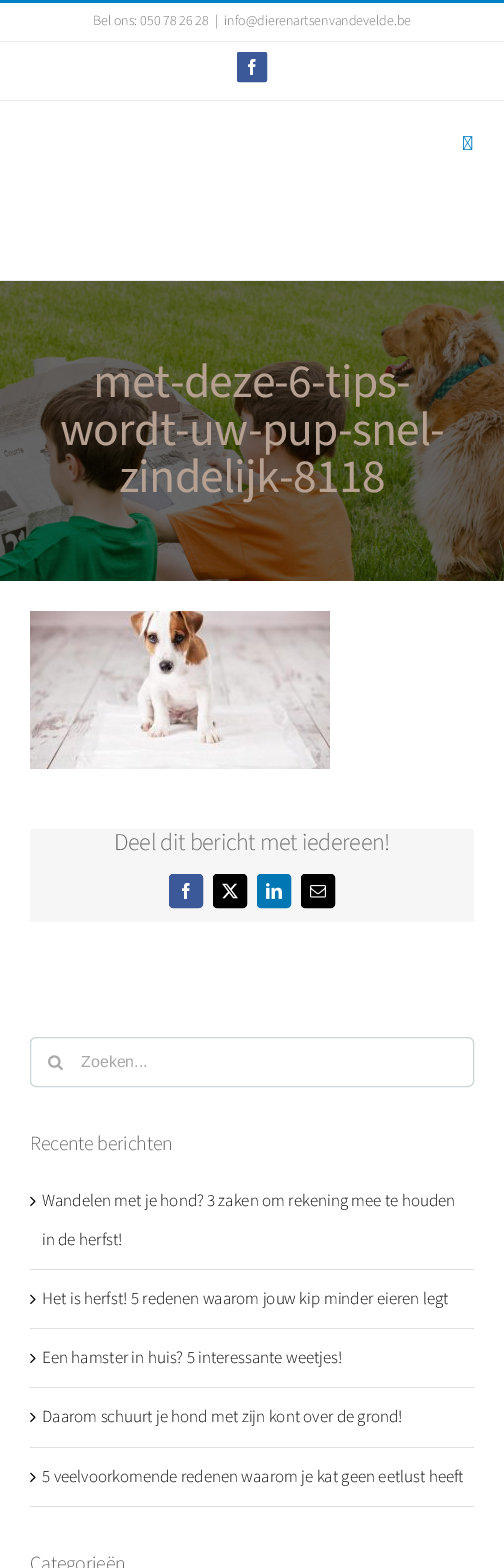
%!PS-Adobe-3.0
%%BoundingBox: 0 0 504 1568
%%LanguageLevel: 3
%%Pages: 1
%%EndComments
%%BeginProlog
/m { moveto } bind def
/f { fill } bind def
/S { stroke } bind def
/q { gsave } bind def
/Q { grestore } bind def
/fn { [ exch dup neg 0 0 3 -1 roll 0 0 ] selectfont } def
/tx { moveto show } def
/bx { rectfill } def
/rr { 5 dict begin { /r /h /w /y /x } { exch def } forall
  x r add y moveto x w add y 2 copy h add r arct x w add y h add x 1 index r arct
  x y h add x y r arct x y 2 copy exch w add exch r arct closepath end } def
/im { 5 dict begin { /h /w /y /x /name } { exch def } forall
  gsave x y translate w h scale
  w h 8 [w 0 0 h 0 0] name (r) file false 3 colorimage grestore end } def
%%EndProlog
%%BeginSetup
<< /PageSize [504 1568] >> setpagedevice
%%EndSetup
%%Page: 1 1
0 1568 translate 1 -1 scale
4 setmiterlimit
1 setgray
0 0 504 1568 bx
0 0.506 0.776 setrgbcolor
0 0 504 3 bx
0.918 setgray
0 100 504 1 bx
0 41 504 1 bx
/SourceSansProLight-Light 14 fn
0.455 setgray
(Bel ons: 050 78 26 28) 93 25 tx
(|) 215 25 tx
(info@dierenartsenvandevelde.be) 224 25 tx
0.231 0.349 0.596 setrgbcolor
237.5 52.5 29 29 1.5 rr q f Q
S
(image0.raw) 248 59 8 16 im
0.918 setgray
0 280 504 1 bx
(image1.raw) 462 136 11 14 im
(image2.raw) 0 281 504 300 im
/SourceSansPro-Regular 47.5 fn
0.71 0.627 0.573 setrgbcolor
93 397 m -0.75 0 (met-deze-6-tips-) ashow
60 445 m -0.75 0 (wordt-uw-pup-snel-) ashow
119 492 m -0.75 0 (zindelijk-8118) ashow
(image3.raw) 30 611 300 158 im
0.965 setgray
30 829 444 93 bx
/SourceSansProLight-Light 24 fn
0.408 setgray
114 850 m -0.35 0 (Deel dit bericht met iedereen!) ashow
0.231 0.349 0.596 setrgbcolor
169.5 874.5 33 33 3.5 rr q f Q
S
(image0.raw) 182 883 8 16 im
0 setgray
213.5 874.5 33 33 3.5 rr q f Q
S
(image4.raw) 222 883 16 16 im
0 0.467 0.71 setrgbcolor
257.5 874.5 33 33 3.5 rr q f Q
S
(image5.raw) 266 883 16 16 im
0 setgray
301.5 874.5 33 33 3.5 rr q f Q
S
(image6.raw) 310 885 16 13 im
0.784 0.843 0.851 setrgbcolor
30.5 1037.5 443 49 5.5 rr S
(image7.raw) 48 1055 15 16 im
/LiberationSans-Regular 16 fn
0.667 0.663 0.663 setrgbcolor
(Zoeken...) 81 1067 tx
/SourceSansProLight-Light 20 fn
0.408 setgray
30 1150 m -0.25 0 (Recente berichten) ashow
0.878 0.871 0.871 setrgbcolor
30 1269 444 1 bx
(image8.raw) 30 1196 6 11 im
/SourceSansProLight-Light 17 fn
0 setgray
(Wandelen met je hond? 3 zaken om rekening mee te houden) 42 1206 tx
(in de herfst!) 42 1245 tx
0.878 0.871 0.871 setrgbcolor
30 1328 444 1 bx
(image8.raw) 30 1294 6 11 im
0 setgray
(Het is herfst! 5 redenen waarom jouw kip minder eieren legt) 42 1304 tx
0.878 0.871 0.871 setrgbcolor
30 1387 444 1 bx
(image8.raw) 30 1353 6 11 im
0 setgray
(Een hamster in huis? 5 interessante weetjes!) 42 1363 tx
0.878 0.871 0.871 setrgbcolor
30 1447 444 1 bx
(image8.raw) 30 1412 6 11 im
0 setgray
(Daarom schuurt je hond met zijn kont over de grond!) 42 1422 tx
0.878 0.871 0.871 setrgbcolor
30 1506 444 1 bx
(image8.raw) 30 1472 6 11 im
0 setgray
(5 veelvoorkomende redenen waarom je kat geen eetlust heeft) 42 1482 tx
/SourceSansProLight-Light 20 fn
0.408 setgray
30 1570 m -0.25 0 (Categorieën) ashow
showpage
%%EOF
